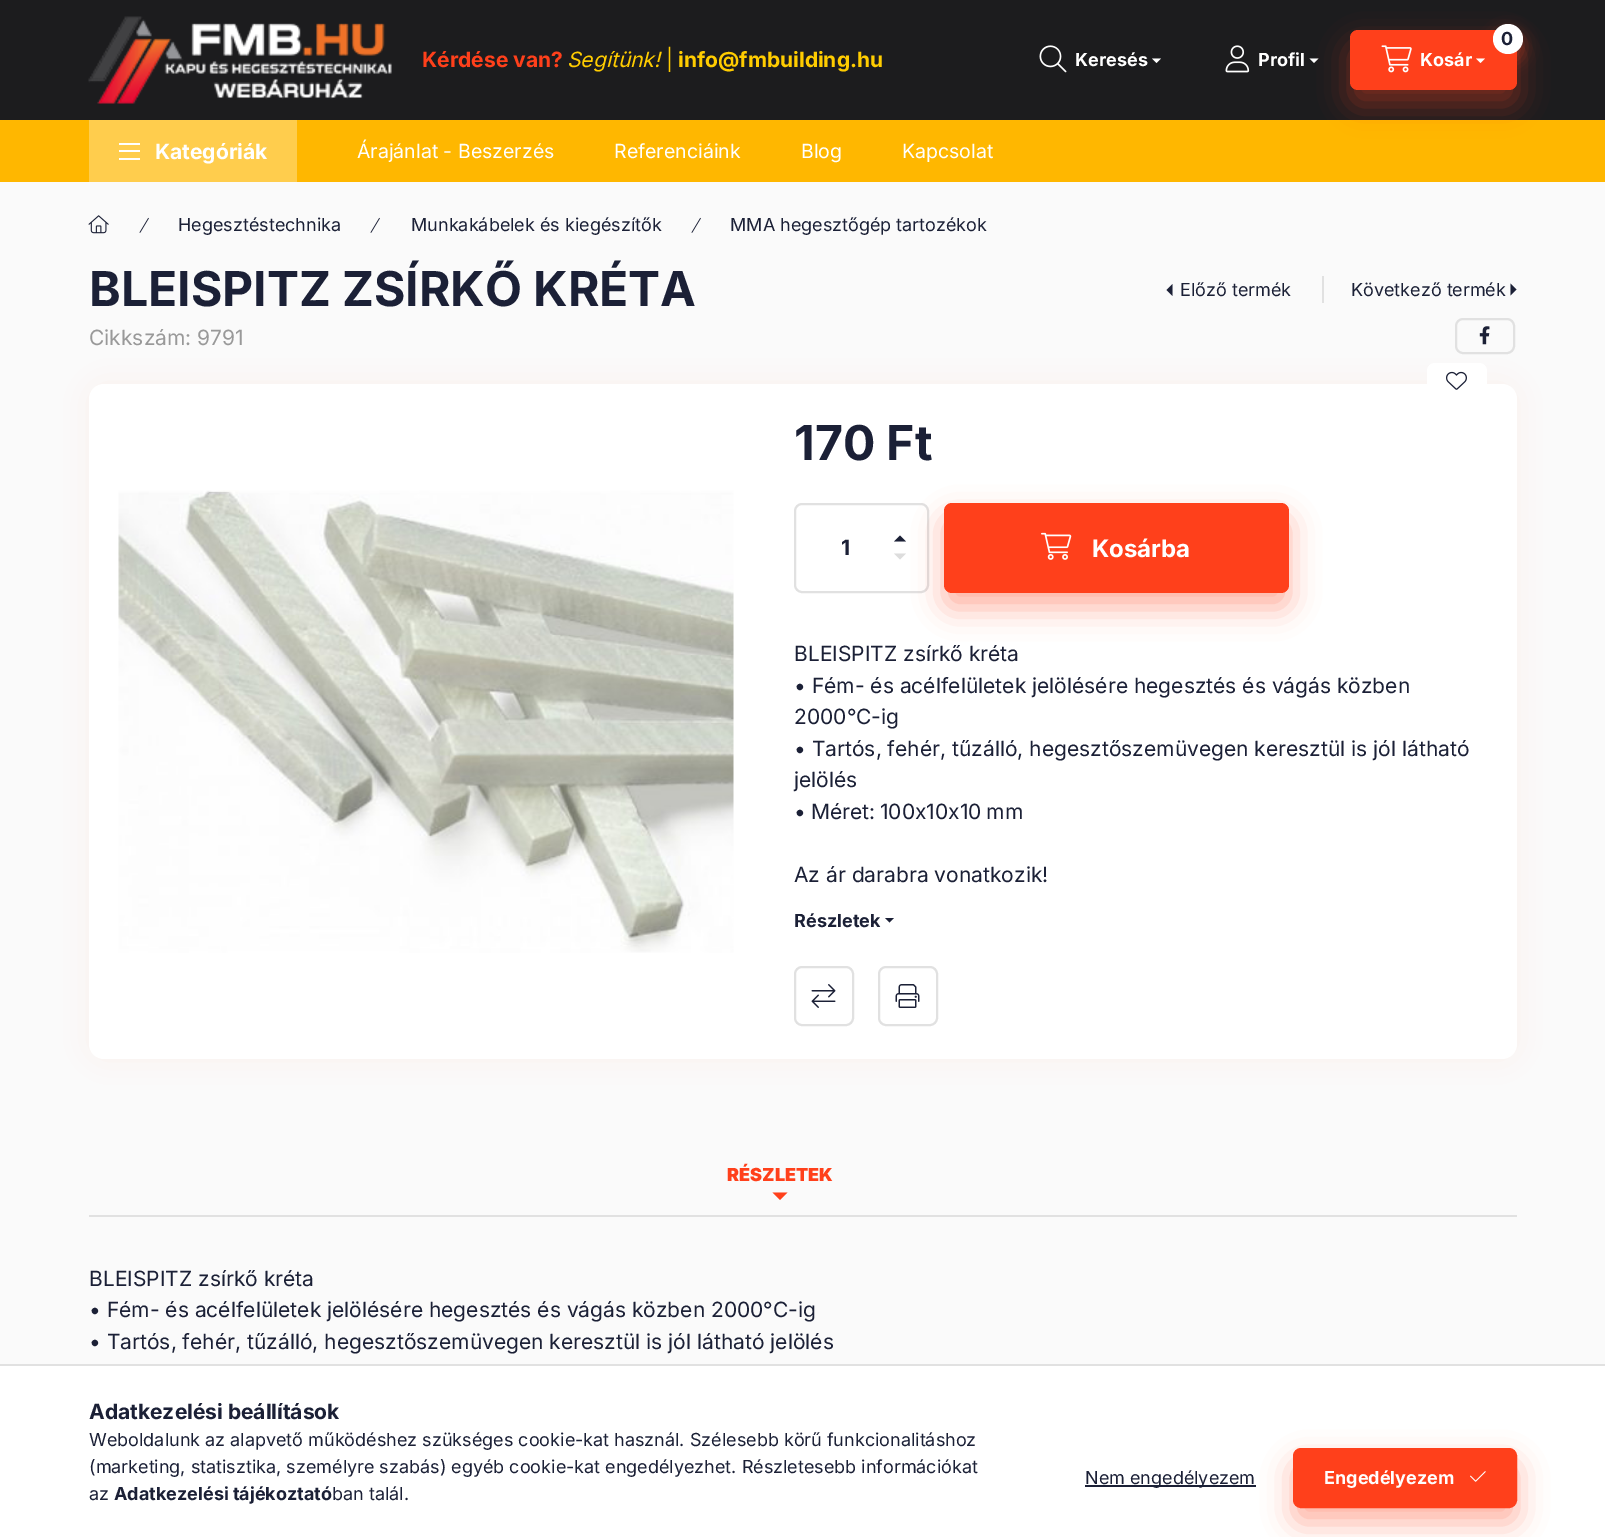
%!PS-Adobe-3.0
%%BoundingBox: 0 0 1605 1537
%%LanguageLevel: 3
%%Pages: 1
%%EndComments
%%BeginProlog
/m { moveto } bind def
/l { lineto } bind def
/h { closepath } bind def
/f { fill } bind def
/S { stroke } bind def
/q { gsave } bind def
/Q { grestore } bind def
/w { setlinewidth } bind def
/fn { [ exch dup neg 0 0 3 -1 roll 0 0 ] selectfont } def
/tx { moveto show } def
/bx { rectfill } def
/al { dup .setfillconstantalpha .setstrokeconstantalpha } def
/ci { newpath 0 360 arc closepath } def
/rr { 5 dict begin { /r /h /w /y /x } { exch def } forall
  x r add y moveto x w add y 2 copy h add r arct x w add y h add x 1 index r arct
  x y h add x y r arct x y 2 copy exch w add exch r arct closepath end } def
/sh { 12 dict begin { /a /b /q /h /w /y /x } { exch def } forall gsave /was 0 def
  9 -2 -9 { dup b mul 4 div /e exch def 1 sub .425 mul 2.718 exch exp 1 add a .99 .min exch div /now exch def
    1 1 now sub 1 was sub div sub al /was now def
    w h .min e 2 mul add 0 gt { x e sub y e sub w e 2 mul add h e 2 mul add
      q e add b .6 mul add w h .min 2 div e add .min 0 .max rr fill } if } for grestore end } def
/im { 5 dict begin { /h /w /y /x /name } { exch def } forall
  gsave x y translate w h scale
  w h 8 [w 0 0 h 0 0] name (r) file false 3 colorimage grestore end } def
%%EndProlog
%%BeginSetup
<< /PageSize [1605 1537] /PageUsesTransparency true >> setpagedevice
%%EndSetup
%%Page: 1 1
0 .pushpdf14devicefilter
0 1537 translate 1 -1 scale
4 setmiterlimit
0.98 setgray
0 0 1605 1537 bx
0.11 0.11 0.118 setrgbcolor
0 0 1605 120 bx
(image0.raw) 88 16 304 88 im
/Inter-Bold 21 fn
1 0.251 0.106 setrgbcolor
(Kérdése van?) 422 67 tx
/Inter-Italic 21 fn
1 0.8 0 setrgbcolor
(Segítünk!) 567 67 tx
/Inter-Regular 21 fn
(|) 666 67 tx
/Inter-Bold 21 fn
(info@fmbuilding.hu) 678 67 tx
(image1.raw) 1039 45 28 28 im
/Inter-Bold 18 fn
1 setgray
(Keresés) 1075 66 tx
1152 58.5 m 1161 58.5 l 1156.5 63 l h f
(image2.raw) 1225 45 25 28 im
1 0.718 0 setrgbcolor
0 120 1605 62 bx
1 0.251 0.106 setrgbcolor
1350 45 167 60 8 15 0.4 sh
1 setgray
(Profil) 1258 66 tx
1309.5 58.5 m 1318.5 58.5 l 1314 63 l h f
1 0.251 0.106 setrgbcolor
1350 30 167 60 8 rr f
1493 32 30 30 15 7.5 0.4 sh
1 setgray
1508 39 15 ci f
0.106 0.125 0.212 setrgbcolor
(0) 1501 45 tx
(image3.raw) 1381 45 31 28 im
1 setgray
(Kosár) 1420 66 tx
1476 58.5 m 1485 58.5 l 1480.5 63 l h f
1 0.804 0.302 setrgbcolor
89 120 208 62 bx
1 setgray
119 143 21 2 bx
119 150 21 2 bx
119 158 21 2 bx
/Inter-Bold 21 fn
(Kategóriák) 155 159 tx
/Inter-Regular 19.5 fn
(Árajánlat - Beszerzés) 357 158 tx
(Referenciáink) 614 158 tx
(Blog) 801 158 tx
(Kapcsolat) 902 158 tx
(image4.raw) 88 215 21 19 im
(image5.raw) 139 217 10 16 im
/Inter-Regular 18 fn
0.106 0.125 0.212 setrgbcolor
(Hegesztéstechnika) 178 231 tx
(image5.raw) 370 217 10 16 im
(Munkakábelek és kiegészítők) 411 231 tx
(image5.raw) 691 217 10 16 im
(MMA hegesztőgép tartozékok) 730 231 tx
/Inter-Bold 48 fn
(BLEISPITZ ZSÍRKŐ KRÉTA) 89 306 tx
1172.5 296 m 1172.5 284 l 1166.5 290 l h f
/Inter-Regular 18 fn
(Előző termék) 1180 296 tx
0.882 setgray
1322 276 2 27 bx
0.106 0.125 0.212 setrgbcolor
(Következő termék) 1351 296 tx
1510.5 295.5 m 1510.5 283.5 l 1516.5 289.5 l h f
/Inter-Regular 21 fn
0.6 setgray
(Cikkszám: 9791) 89 345 tx
0.882 setgray
2 w
1456 319 58 34 7 rr S
(image6.raw) 1479 326 11 19 im
1 0.251 0.106 setrgbcolor
89 384 1428 675 15 15 0.05 sh
1 setgray
89 384 1428 675 15 rr f
1427 363 60 36 8 rr f
(image7.raw) 1446 371 21 19 im
(image8.raw) 118 490 616 463 im
/Inter-Bold 48 fn
0.106 0.125 0.212 setrgbcolor
(170 Ft) 794 460 tx
0.882 setgray
795 504 133 88 7 rr S
/Inter-Bold 21 fn
0.106 0.125 0.212 setrgbcolor
(1) 841 555 tx
906 541.5 m 894 541.5 l 900 535.5 l h f
0.867 setgray
894 553.5 m 906 553.5 l 900 559.5 l h f
1 0.251 0.106 setrgbcolor
944 518 345 90 8 15 0.4 sh
944 503 345 90 8 rr f
(image9.raw) 1041 532 31 28 im
/Inter-Bold 24 fn
1 setgray
(Kosárba) 1092 557 tx
/Inter-Regular 21 fn
0.106 0.125 0.212 setrgbcolor
(BLEISPITZ zsírkő kréta) 794 661 tx
(• Fém- és acélfelületek jelölésére hegesztés és vágás közben) 794 693 tx
(2000°C-ig) 794 724 tx
(• Tartós, fehér, tűzálló, hegesztőszemüvegen keresztül is jól látható) 794 756 tx
(jelölés) 794 787 tx
794 819 m -1 0 32 (• Méret: 100x10x10 mm) widthshow
(Az ár darabra vonatkozik!) 794 882 tx
/Inter-Bold 18 fn
(Részletek) 794 927 tx
885 918 m 894 918 l 889.5 922.5 l h f
0.882 setgray
795 967 58 58 7 rr S
(image10.raw) 811 984 25 24 im
879 967 58 58 7 rr S
(image11.raw) 895 984 25 24 im
89 1215 1428 2 bx
/Inter-Black 18 fn
1 0.251 0.106 setrgbcolor
(RÉSZLETEK) 727 1181 tx
772.5 1192.5 m 787.5 1192.5 l 780 1200 l h f
/Inter-Regular 21 fn
0.106 0.125 0.212 setrgbcolor
(BLEISPITZ zsírkő kréta) 89 1286 tx
(• Fém- és acélfelületek jelölésére hegesztés és vágás közben 2000°C-ig) 89 1317 tx
(• Tartós, fehér, tűzálló, hegesztőszemüvegen keresztül is jól látható jelölés) 89 1349 tx
1 setgray
0 1366 1605 171 bx
0.882 setgray
0 1364 1605 2 bx
/Inter-Bold 21 fn
0.106 0.125 0.212 setrgbcolor
(Adatkezelési beállítások) 89 1419 tx
/Inter-Regular 18 fn
(Weboldalunk az alapvető működéshez szükséges cookie-kat használ. Szélesebb körű funkcionalitáshoz) 89 1446 tx
(\(marketing, statisztika, személyre szabás\) egyéb cookie-kat engedélyezhet. Részletesebb információkat) 89 1473 tx
(az) 89 1500 tx
/Inter-Bold 18 fn
(Adatkezelési tájékoztató) 114 1500 tx
/Inter-Regular 18 fn
(ban talál.) 332 1500 tx
1085 1485 171 2 bx
(Nem engedélyezem) 1085 1484 tx
1 0.251 0.106 setrgbcolor
1293 1463 224 60 8 15 0.4 sh
1294 1449 222 58 7 rr q f Q
S
/Inter-Bold 18 fn
1 setgray
(Engedélyezem) 1324 1484 tx
(image12.raw) 1470 1471 16 11 im
.poppdf14devicefilter showpage
%%EOF
